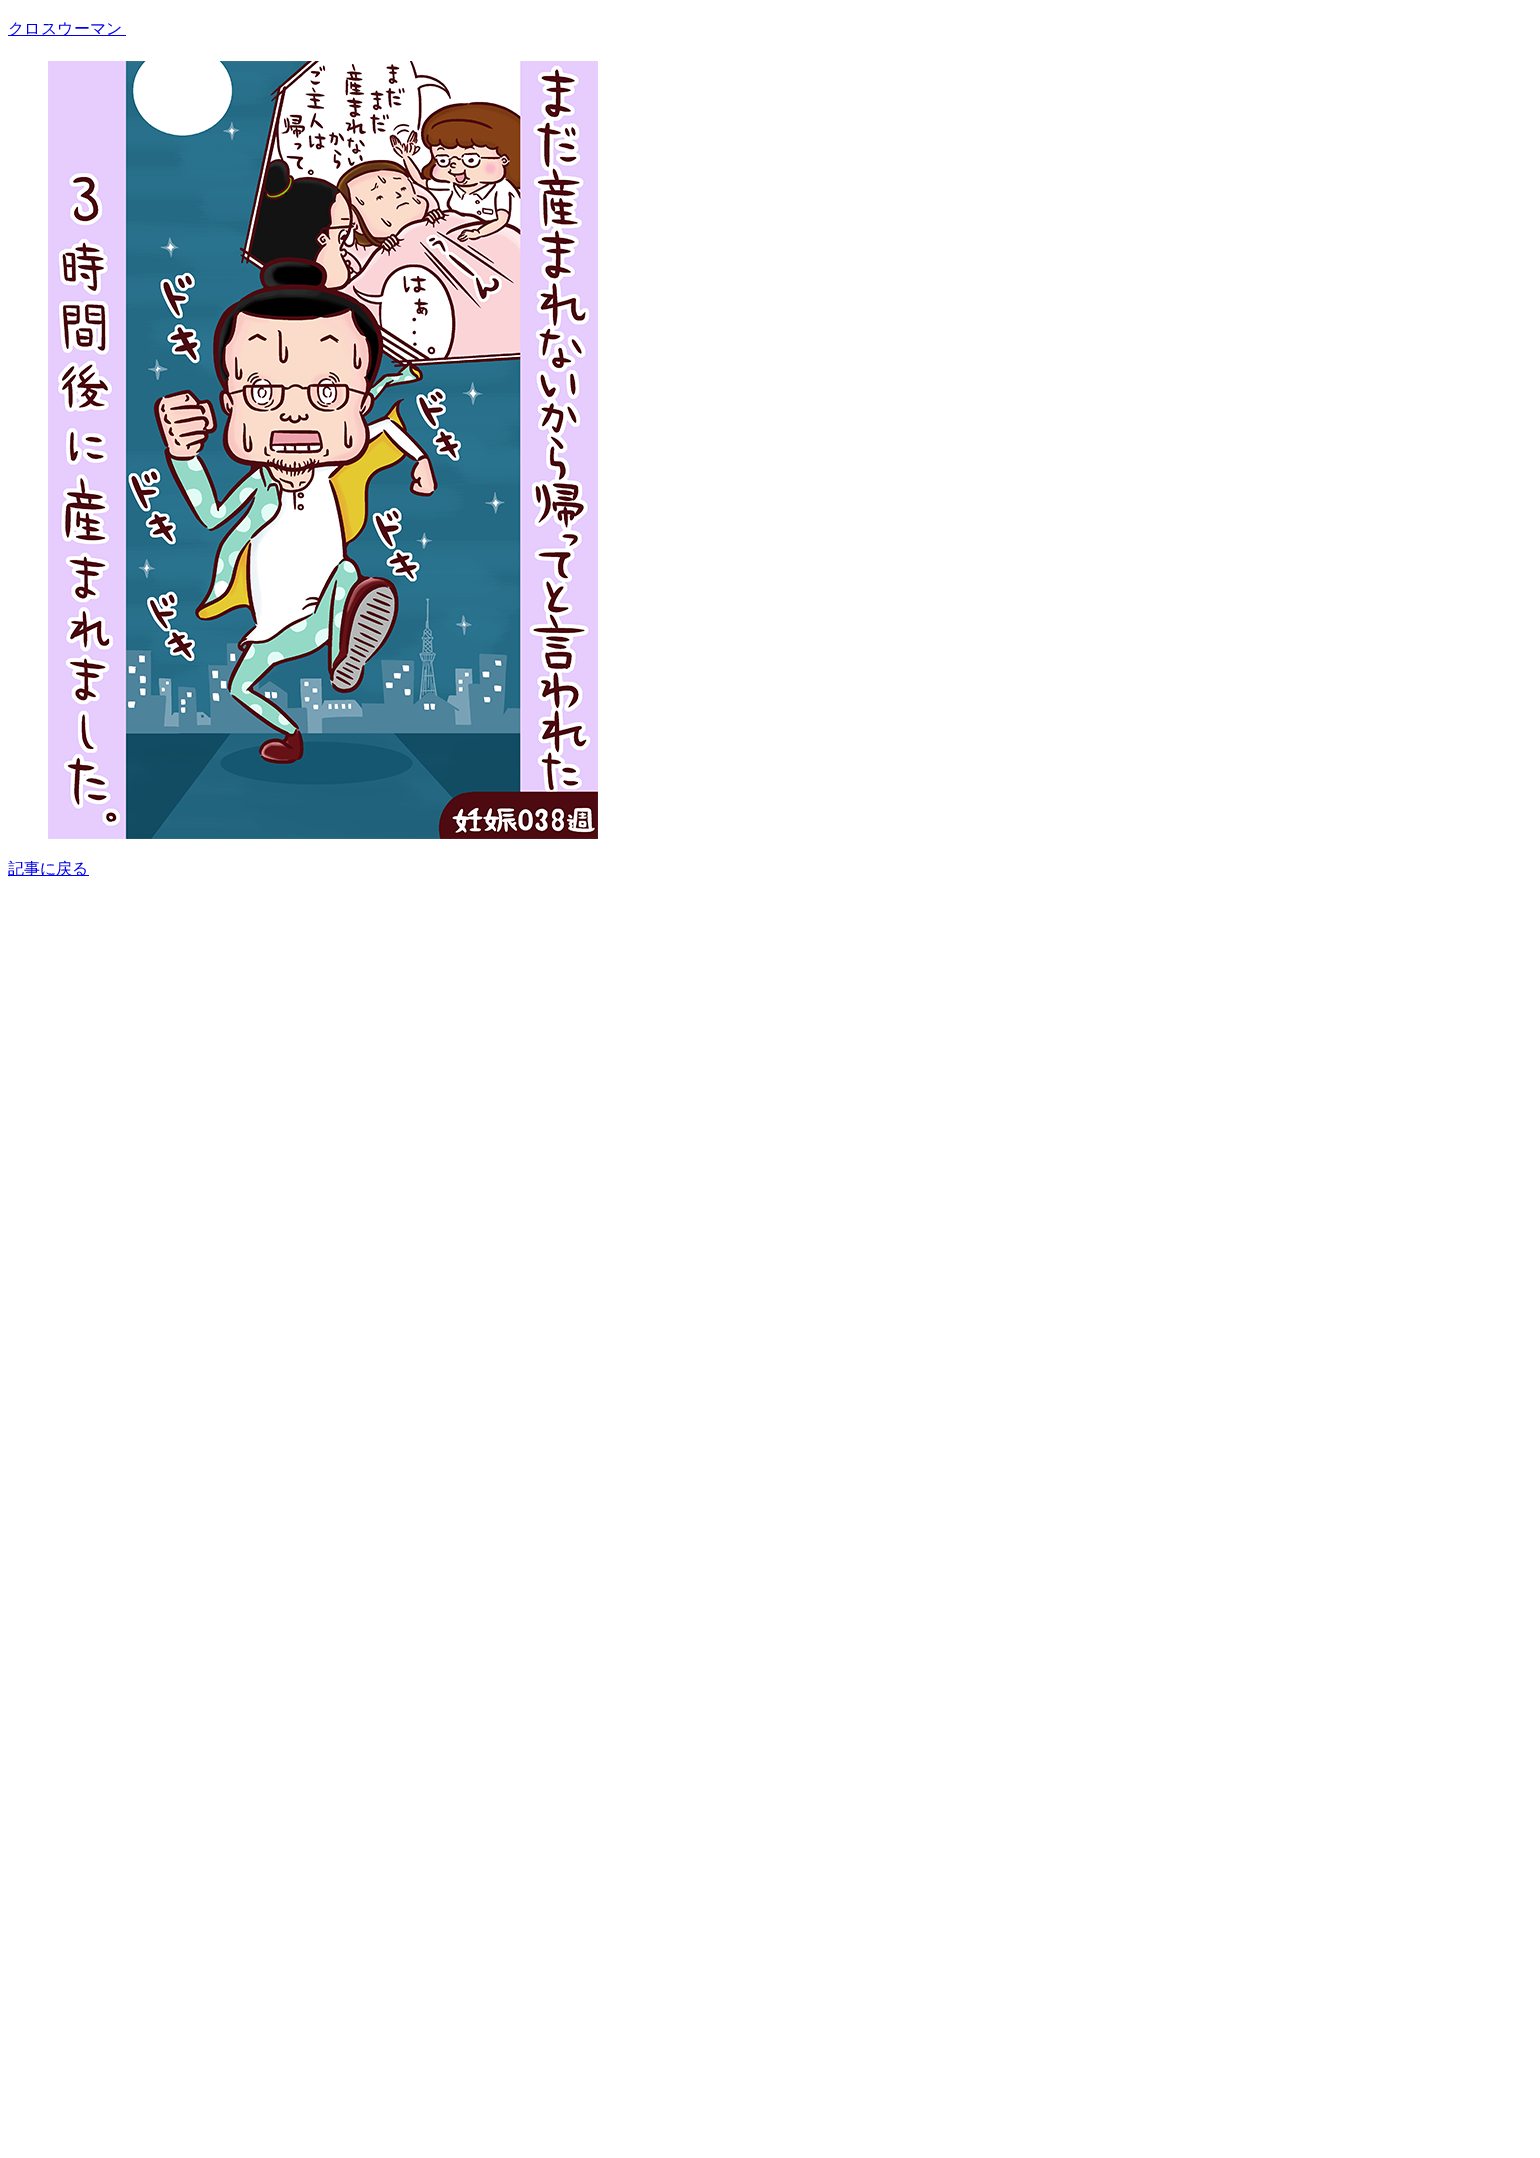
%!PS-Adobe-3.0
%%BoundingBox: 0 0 1540 2158
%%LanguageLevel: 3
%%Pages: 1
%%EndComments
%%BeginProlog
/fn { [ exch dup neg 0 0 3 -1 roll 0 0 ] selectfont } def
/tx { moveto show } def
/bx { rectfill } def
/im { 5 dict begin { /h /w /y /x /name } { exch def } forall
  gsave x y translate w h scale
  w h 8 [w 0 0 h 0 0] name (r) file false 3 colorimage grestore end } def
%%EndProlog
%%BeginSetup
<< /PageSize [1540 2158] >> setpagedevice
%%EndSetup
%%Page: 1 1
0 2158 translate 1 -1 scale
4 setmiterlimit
1 setgray
0 0 1540 2158 bx
0 0 0.933 setrgbcolor
8 35 118 1 bx
/WenQuanYiZenHei-Medium 16 fn
(クロスウーマン) 8 34 tx
(image0.raw) 48 61 550 778 im
8 875 81 1 bx
(記事に戻る) 8 874 tx
showpage
%%EOF
